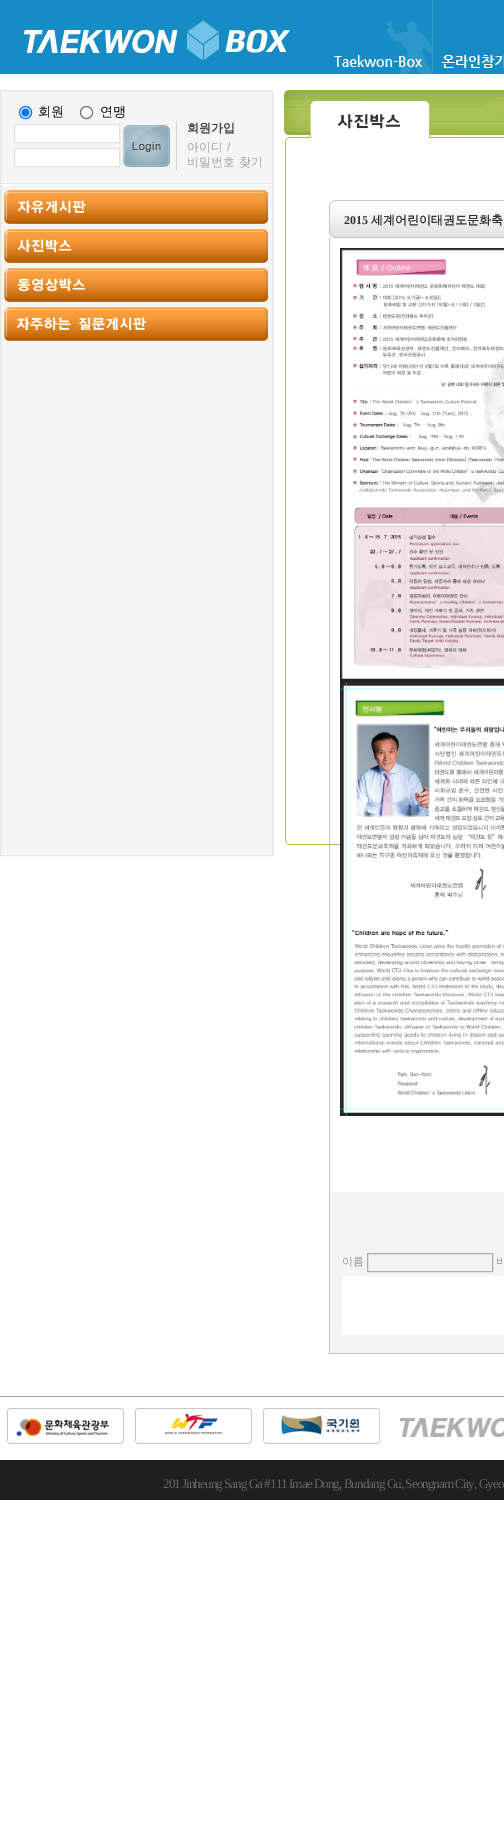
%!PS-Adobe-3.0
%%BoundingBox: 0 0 504 1842
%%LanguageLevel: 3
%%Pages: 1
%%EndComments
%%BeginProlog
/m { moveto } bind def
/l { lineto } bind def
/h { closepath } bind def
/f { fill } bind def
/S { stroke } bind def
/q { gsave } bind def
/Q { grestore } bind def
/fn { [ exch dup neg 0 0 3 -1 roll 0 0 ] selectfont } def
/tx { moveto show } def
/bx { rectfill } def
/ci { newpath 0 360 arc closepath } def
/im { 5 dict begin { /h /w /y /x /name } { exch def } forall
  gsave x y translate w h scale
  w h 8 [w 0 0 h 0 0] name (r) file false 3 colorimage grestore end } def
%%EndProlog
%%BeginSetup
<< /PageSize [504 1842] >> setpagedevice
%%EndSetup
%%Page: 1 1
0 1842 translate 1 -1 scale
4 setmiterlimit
1 setgray
0 0 504 1842 bx
0.122 setgray
0 1460 504 40 bx
(image0.raw) 0 0 504 74 im
(image1.raw) 24 20 266 41 im
(image2.raw) 334 55 88 12 im
(image3.raw) 441 55 63 13 im
0.961 setgray
0.5 90.5 m 272.5 90.5 l 272.5 855.5 l 0.5 855.5 l h q f Q
0.898 setgray
S
1 183 271 1 bx
1 setgray
25.5 112.5 6 ci q f Q
0 0.459 1 setrgbcolor
S
25.5 112.5 4 ci f
/WenQuanYiZenHei-Medium 13.2 fn
0 setgray
(회원) 38 116 tx
1 setgray
86.5 112.5 6 ci q f Q
0.463 setgray
S
0 setgray
(연맹) 100 116 tx
1 setgray
14.5 148.5 m 119.5 148.5 l 119.5 166.5 l 14.5 166.5 l h q f Q
0.894 setgray
S
1 setgray
14.5 124.5 m 119.5 124.5 l 119.5 142.5 l 14.5 142.5 l h q f Q
0.894 setgray
S
(image4.raw) 123 125 47 42 im
0.831 setgray
176 121 1 49 bx
/WenQuanYiZenHei-Bold 12 fn
0.251 setgray
(회원가입) 187 132 tx
/WenQuanYiZenHei-Medium 12 fn
0.639 setgray
(아이디) 187 151 tx
/LiberationSans-Regular 12 fn
(/) 227 151 tx
/WenQuanYiZenHei-Medium 12 fn
(비밀번호 찾기) 187 166 tx
1 setgray
1 184 271 1 bx
(image5.raw) 4 190 264 34 im
(image6.raw) 4 229 264 34 im
(image7.raw) 4 268 264 34 im
(image8.raw) 4 307 264 34 im
(image9.raw) 284 90 220 45 im
(image10.raw) 337 114 63 15 im
(image11.raw) 285 135 219 710 im
(image12.raw) 329 200 175 38 im
/LiberationSerif-Bold 12 fn
0.2 setgray
(2015) 344 224 tx
/WenQuanYiZenHei-Bold 12 fn
(세계어린이태권도문화축) 371 224 tx
0.761 setgray
329 1353 175 1 bx
329 238 1 1116 bx
(image13.raw) 340 248 164 434 im
(image14.raw) 340 682 164 434 im
0.957 setgray
330 1192 174 161 bx
/WenQuanYiZenHei-Medium 11 fn
0.6 setgray
(이름) 342 1265 tx
0.678 setgray
367.5 1253.5 125 18 rectstroke
0.6 setgray
(비) 496 1265 tx
1 setgray
342 1276 162 59 bx
0.627 setgray
0 1396 504 1 bx
(image15.raw) 7 1408 117 36 im
(image16.raw) 135 1408 117 36 im
(image17.raw) 263 1408 117 36 im
(image18.raw) 400 1418 104 19 im
/LiberationSerif-Regular 13.2 fn
0.4 setgray
163 1488 m -1 0 (201 Jinheung Sang Ga #111 Imae Dong, Bundang Gu, Seongnam City, Gyeo) ashow
showpage
%%EOF
